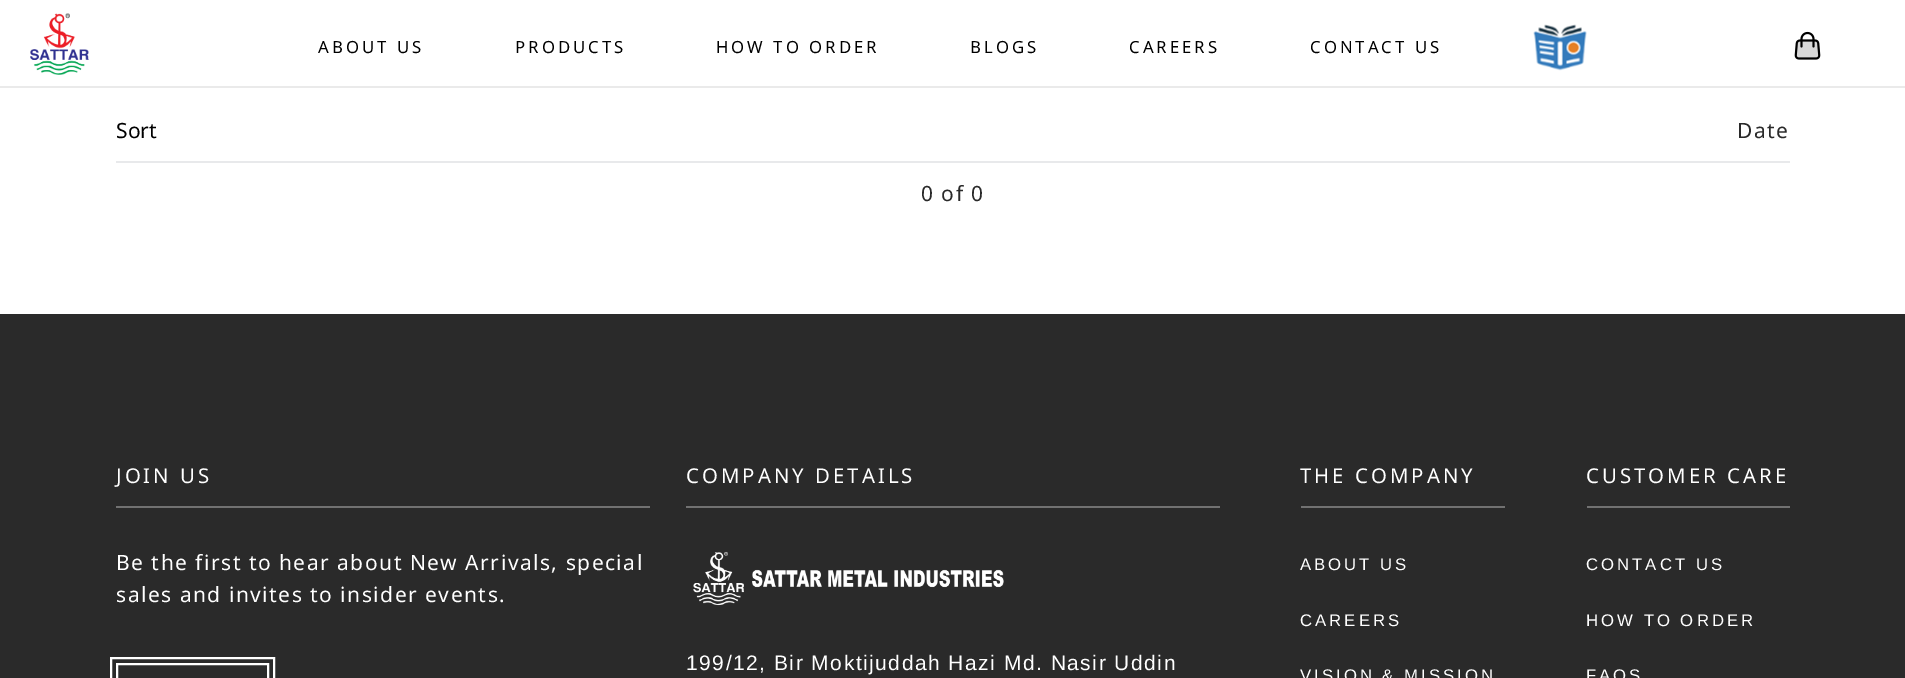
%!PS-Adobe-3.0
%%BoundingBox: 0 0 1905 678
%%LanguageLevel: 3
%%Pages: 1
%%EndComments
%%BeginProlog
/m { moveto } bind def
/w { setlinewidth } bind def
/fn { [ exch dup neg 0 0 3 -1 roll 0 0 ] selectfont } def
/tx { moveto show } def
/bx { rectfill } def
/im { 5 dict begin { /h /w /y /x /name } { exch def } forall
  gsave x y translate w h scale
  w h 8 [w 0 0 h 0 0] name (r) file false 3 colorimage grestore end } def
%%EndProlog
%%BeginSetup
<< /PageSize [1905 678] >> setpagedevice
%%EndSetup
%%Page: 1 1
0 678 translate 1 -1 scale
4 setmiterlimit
1 setgray
0 0 1905 678 bx
0.918 setgray
0 86 1905 2 bx
(image0.raw) 30 13 59 62 im
/NotoSans-Regular 16.75 fn
0 setgray
318 53 m 3 0 (ABOUT US) ashow
515 53 m 3 0 (PRODUCTS) ashow
716 53 m 3 0 (HOW TO ORDER) ashow
970 53 m 3 0 (BLOGS) ashow
1129 53 m 3 0 (CAREERS) ashow
1310 53 m 3 0 (CONTACT US) ashow
(image1.raw) 1533 24 54 47 im
(image2.raw) 1794 31 27 29 im
0.91 0.914 0.922 setrgbcolor
116 161 1674 2 bx
/NotoSans-Regular 21 fn
0 setgray
(Sort) 116 138 tx
0.165 setgray
1737 138 m 1.5 0 (Date) ashow
921 201 m 1.5 0 (0 of 0) ashow
0 314 1905 364 bx
0.443 setgray
116 506 534 2 bx
/NotoSans-Regular 20.4 fn
1 setgray
116 483 m 3 0 (JOIN US) ashow
/NotoSans-Regular 21 fn
116 570 m 1.5 0 (Be the first to hear about New Arrivals, special) ashow
116 602 m 1.5 0 (sales and invites to insider events.) ashow
2 w
117 664 151 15 rectstroke
111 658 163 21 rectstroke
0.443 setgray
686 506 534 2 bx
/NotoSans-Regular 20.4 fn
1 setgray
686 483 m 3 0 (COMPANY DETAILS) ashow
(image3.raw) 693 551 311 55 im
/LiberationSans-Regular 21 fn
686 670 m 1.5 0 (199/12, Bir Moktijuddah Hazi Md. Nasir Uddin) ashow
0.443 setgray
1301 506 204 2 bx
/NotoSans-Regular 20.4 fn
1 setgray
1300 483 m 3 0 (THE COMPANY) ashow
/LiberationSans-Regular 16.75 fn
1300 570 m 3 0 (ABOUT US) ashow
1300 626 m 3 0 (CAREERS) ashow
1300 681 m 3 0 (VISION & MISSION) ashow
0.443 setgray
1587 506 203 2 bx
/NotoSans-Regular 20.4 fn
1 setgray
1586 483 m 3 0 (CUSTOMER CARE) ashow
/LiberationSans-Regular 16.75 fn
1586 570 m 3 0 (CONTACT US) ashow
1586 626 m 3 0 (HOW TO ORDER) ashow
1586 681 m 3 0 (FAQS) ashow
showpage
%%EOF
